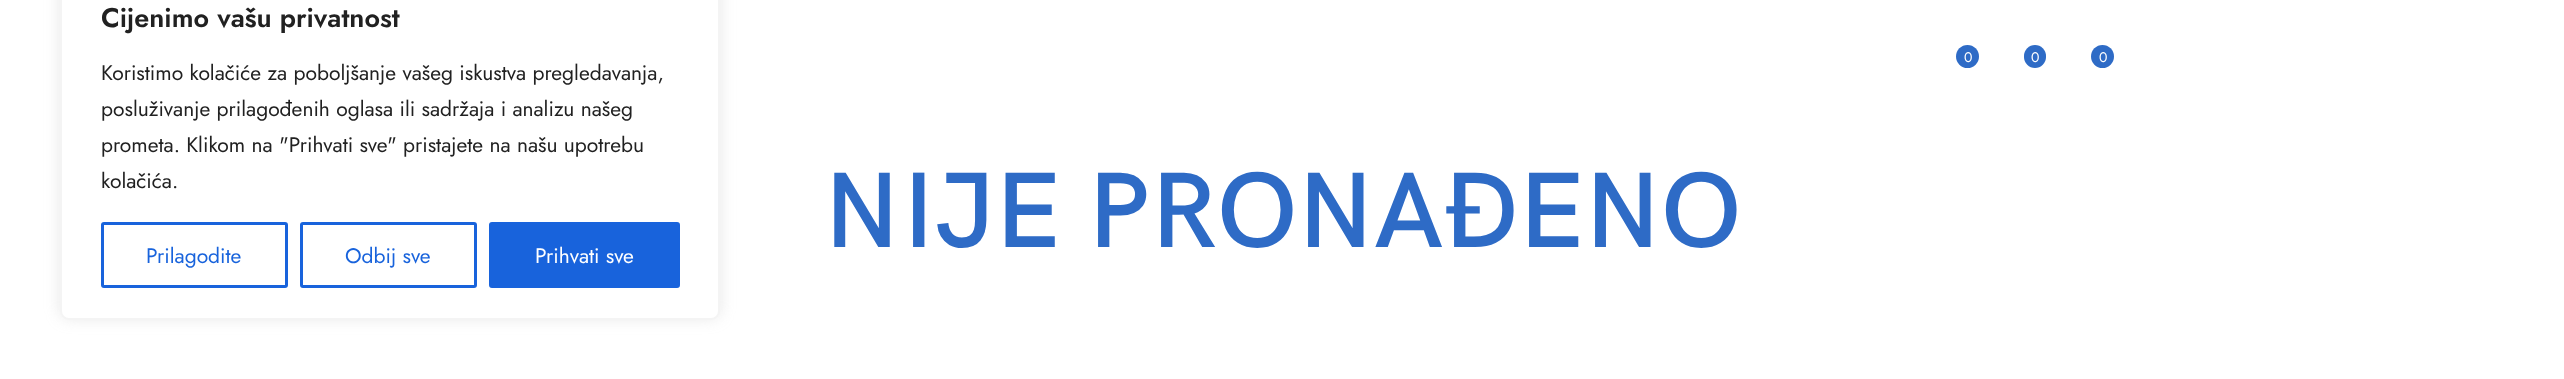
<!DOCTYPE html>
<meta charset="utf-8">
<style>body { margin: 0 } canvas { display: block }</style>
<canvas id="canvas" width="2564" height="379"></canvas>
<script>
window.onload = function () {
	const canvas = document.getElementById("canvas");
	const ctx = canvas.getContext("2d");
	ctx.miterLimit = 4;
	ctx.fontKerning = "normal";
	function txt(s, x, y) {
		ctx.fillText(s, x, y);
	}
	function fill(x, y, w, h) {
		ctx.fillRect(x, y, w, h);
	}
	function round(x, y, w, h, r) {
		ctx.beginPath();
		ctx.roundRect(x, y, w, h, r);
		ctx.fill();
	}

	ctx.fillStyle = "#FFFFFF";
	fill(0, 0, 2564, 379);
	ctx.fillStyle = "rgba(172, 171, 171, 0.3)";
	ctx.filter = "blur(7.5px)";
	ctx.beginPath();
	ctx.roundRect(60, -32, 660, 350, 9);
	ctx.fill();
	ctx.filter = "none";
	ctx.fillStyle = "#FFFFFF";
	ctx.beginPath();
	ctx.roundRect(61, -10, 658, 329, 8);
	ctx.fill();
	ctx.strokeStyle = "#F4F4F4";
	ctx.lineWidth = 2;
	ctx.stroke();
	ctx.beginPath();
	ctx.roundRect(102.5, 223.5, 184, 63, 1.5);
	ctx.strokeStyle = "#1863DC";
	ctx.lineWidth = 3;
	ctx.stroke();
	ctx.beginPath();
	ctx.roundRect(301.5, 223.5, 174, 63, 1.5);
	ctx.stroke();
	ctx.fillStyle = "#1863DC";
	ctx.beginPath();
	ctx.roundRect(490.5, 223.5, 188, 63, 1.5);
	ctx.fill();
	ctx.stroke();
	ctx.fillStyle = "#2E6BC6";
	ctx.beginPath();
	ctx.arc(1967.5, 56.5, 11.5, 0, Math.PI * 2);
	ctx.fill();
	round(2024, 45, 22, 23, 11);
	ctx.beginPath();
	ctx.arc(2102.5, 56.5, 11.5, 0, Math.PI * 2);
	ctx.fill();
	ctx.font = "600 27px Jost";
	ctx.fillStyle = "#212121";
	txt("Cijenimo vašu privatnost", 101, 27);
	ctx.font = "21px Jost";
	txt("Koristimo kolačiće za poboljšanje vašeg iskustva pregledavanja,", 101, 80);
	txt("posluživanje prilagođenih oglasa ili sadržaja i analizu našeg", 101, 116);
	txt("prometa. Klikom na \"Prihvati sve\" pristajete na našu upotrebu", 101, 152);
	txt("kolačića.", 101, 188);
	ctx.fillStyle = "#1863DC";
	txt("Prilagodite", 146, 263);
	txt("Odbij sve", 345, 263);
	ctx.fillStyle = "#FFFFFF";
	txt("Prihvati sve", 535, 263);
	ctx.font = "14px Jost";
	txt("0", 1964, 62);
	txt("0", 2031, 62);
	txt("0", 2099, 62);
	ctx.font = "600 107.75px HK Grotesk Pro";
	ctx.fillStyle = "#2E6BC6";
	txt("NIJE PRONAĐENO", 824, 247);
};
</script>
